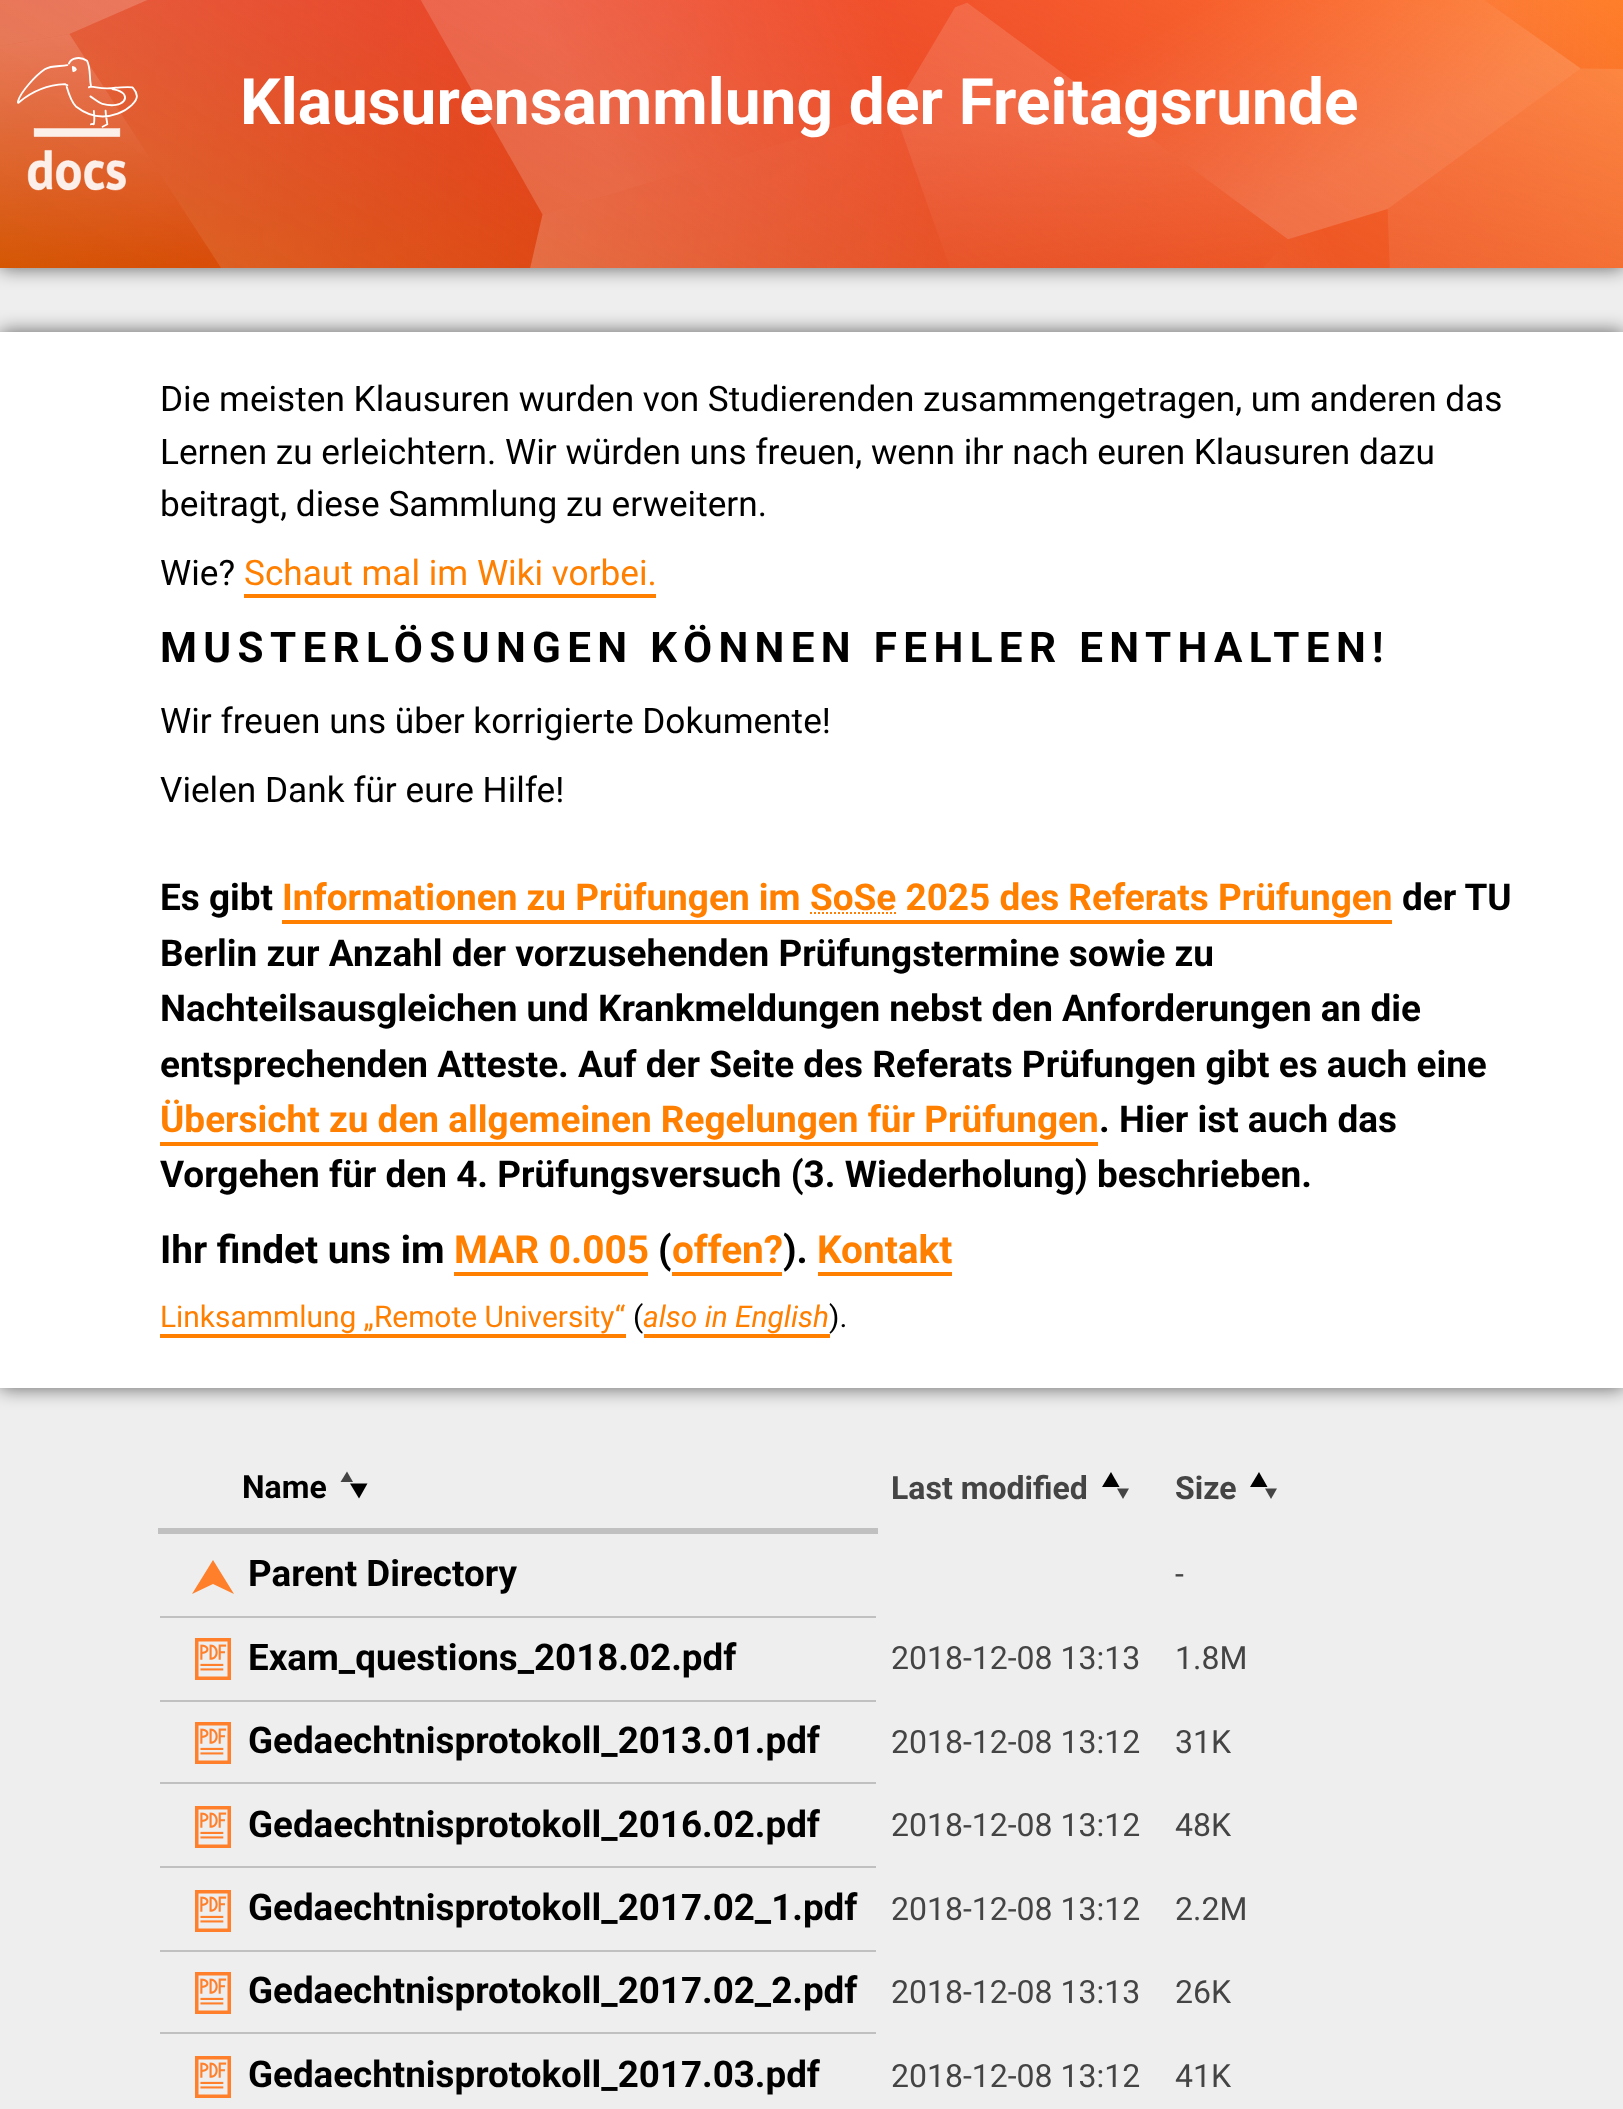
<!DOCTYPE html>
<meta charset="utf-8">
<style>body { margin: 0 } canvas { display: block }</style>
<canvas id="canvas" width="1623" height="2109"></canvas>
<img id="img1" src="img_01.png" hidden>
<img id="img2" src="img_02.png" hidden>
<script>
window.onload = function () {
	const canvas = document.getElementById("canvas");
	const ctx = canvas.getContext("2d");
	ctx.miterLimit = 4;
	ctx.fontKerning = "normal";
	function txt(s, x, y) {
		ctx.fillText(s, x, y);
	}
	function fill(x, y, w, h) {
		ctx.fillRect(x, y, w, h);
	}
	function img(id, x, y, w, h) {
		ctx.drawImage(document.getElementById(id), x, y, w, h);
	}

	ctx.fillStyle = "#EEEEEE";
	fill(0, 0, 1623, 2109);
	ctx.fillStyle = "rgba(0, 0, 0, 0.6)";
	ctx.filter = "blur(9.5px)";
	ctx.beginPath();
	ctx.rect(0, 0, 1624, 268);
	ctx.fill();
	ctx.filter = "none";
	ctx.fillStyle = "#FF7F2A";
	fill(0, 0, 1623, 268);
	img("img1", 0, 0, 1623, 268);
	ctx.fillStyle = "rgba(0, 0, 0, 0.6)";
	ctx.filter = "blur(9.5px)";
	ctx.beginPath();
	ctx.rect(0, 332, 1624, 1056);
	ctx.fill();
	ctx.filter = "none";
	ctx.fillStyle = "#FFFFFF";
	fill(0, 332, 1623, 1056);
	ctx.fillStyle = "#FF7F00";
	fill(244, 594, 412, 4);
	fill(282, 920, 1110, 4);
	ctx.beginPath();
	ctx.moveTo(810, 913);
	ctx.lineTo(896.5, 913);
	ctx.strokeStyle = "#FF7F00";
	ctx.lineWidth = 2;
	ctx.setLineDash([2, 2]);
	ctx.stroke();
	fill(160, 1142, 938, 4);
	fill(454, 1272, 194, 4);
	fill(672, 1272, 110, 4);
	fill(818, 1272, 134, 4);
	fill(160, 1334, 466, 4);
	fill(644, 1334, 186, 4);
	ctx.fillStyle = "#C0C0C0";
	fill(158, 1528, 720, 6);
	ctx.fillStyle = "#444444";
	ctx.beginPath();
	ctx.moveTo(353, 1482);
	ctx.lineTo(347, 1471.5);
	ctx.lineTo(340.5, 1482);
	ctx.closePath();
	ctx.fill();
	ctx.fillStyle = "#000000";
	ctx.beginPath();
	ctx.moveTo(359, 1498.5);
	ctx.lineTo(367.5, 1483.5);
	ctx.lineTo(350, 1483.5);
	ctx.closePath();
	ctx.fill();
	ctx.fillStyle = "#444444";
	ctx.beginPath();
	ctx.moveTo(1117, 1488.5);
	ctx.lineTo(1123, 1499);
	ctx.lineTo(1129, 1488.5);
	ctx.closePath();
	ctx.fill();
	ctx.fillStyle = "#000000";
	ctx.beginPath();
	ctx.moveTo(1111, 1472);
	ctx.lineTo(1102, 1487);
	ctx.lineTo(1119.5, 1487);
	ctx.closePath();
	ctx.fill();
	ctx.fillStyle = "#444444";
	ctx.beginPath();
	ctx.moveTo(1265, 1488.5);
	ctx.lineTo(1271, 1499);
	ctx.lineTo(1277, 1488.5);
	ctx.closePath();
	ctx.fill();
	ctx.fillStyle = "#000000";
	ctx.beginPath();
	ctx.moveTo(1259, 1472);
	ctx.lineTo(1250, 1487);
	ctx.lineTo(1267.5, 1487);
	ctx.closePath();
	ctx.fill();
	ctx.fillStyle = "#C0C0C0";
	fill(160, 1616, 716, 2);
	ctx.fillStyle = "#FF7F2A";
	ctx.beginPath();
	ctx.moveTo(192, 1594);
	ctx.lineTo(213, 1560);
	ctx.lineTo(234, 1594);
	ctx.lineTo(213, 1584);
	ctx.closePath();
	ctx.fill("evenodd");
	ctx.fillStyle = "#C0C0C0";
	fill(160, 1700, 716, 2);
	img("img2", 195, 1638, 36, 42);
	fill(160, 1782, 716, 2);
	img("img2", 195, 1722, 36, 42);
	fill(160, 1866, 716, 2);
	img("img2", 195, 1806, 36, 42);
	fill(160, 1950, 716, 2);
	img("img2", 195, 1890, 36, 42);
	fill(160, 2032, 716, 2);
	img("img2", 195, 1972, 36, 42);
	img("img2", 195, 2056, 36, 42);
	ctx.font = "bold 64px Roboto";
	ctx.fillStyle = "#FFFFFF";
	txt("Klausurensammlung der Freitagsrunde", 240, 124);
	ctx.font = "35.2px Roboto";
	ctx.fillStyle = "#000000";
	txt("Die meisten Klausuren wurden von Studierenden zusammengetragen, um anderen das", 160, 411);
	txt("Lernen zu erleichtern. Wir würden uns freuen, wenn ihr nach euren Klausuren dazu", 160, 464);
	txt("beitragt, diese Sammlung zu erweitern.", 160, 516);
	txt("Wie?", 160, 585);
	ctx.fillStyle = "#FF7F00";
	txt("Schaut mal im Wiki vorbei.", 244, 585);
	ctx.letterSpacing = "6.35px";
	ctx.font = "bold 42.25px Roboto";
	ctx.fillStyle = "#000000";
	txt("MUSTERLÖSUNGEN KÖNNEN FEHLER ENTHALTEN!", 160, 662);
	ctx.letterSpacing = "0px";
	ctx.font = "35.2px Roboto";
	txt("Wir freuen uns über korrigierte Dokumente!", 160, 733);
	txt("Vielen Dank für eure Hilfe!", 160, 802);
	ctx.font = "bold 36.95px Roboto";
	txt("Es gibt", 160, 910);
	ctx.fillStyle = "#FF7F00";
	txt("Informationen zu Prüfungen im", 282, 910);
	txt("SoSe 2025 des Referats Prüfungen", 810, 910);
	ctx.fillStyle = "#000000";
	txt("der TU", 1402, 910);
	txt("Berlin zur Anzahl der vorzusehenden Prüfungstermine sowie zu", 160, 966);
	txt("Nachteilsausgleichen und Krankmeldungen nebst den Anforderungen an die", 160, 1021);
	txt("entsprechenden Atteste. Auf der Seite des Referats Prüfungen gibt es auch eine", 160, 1077);
	ctx.fillStyle = "#FF7F00";
	txt("Übersicht zu den allgemeinen Regelungen für Prüfungen", 160, 1132);
	ctx.fillStyle = "#000000";
	txt(". Hier ist auch das", 1099, 1132);
	txt("Vorgehen für den 4. Prüfungsversuch (3. Wiederholung) beschrieben.", 160, 1187);
	ctx.font = "bold 38.75px Roboto";
	txt("Ihr findet uns im", 160, 1263);
	ctx.fillStyle = "#FF7F00";
	txt("MAR 0.005", 454, 1263);
	ctx.fillStyle = "#000000";
	txt("(", 658, 1263);
	ctx.fillStyle = "#FF7F00";
	txt("offen?", 672, 1263);
	ctx.fillStyle = "#000000";
	txt(").", 783, 1263);
	ctx.fillStyle = "#FF7F00";
	txt("Kontakt", 817, 1263);
	ctx.font = "29.9px Roboto";
	txt("Linksammlung „Remote University“", 160, 1327);
	ctx.fillStyle = "#000000";
	txt("(", 633, 1327);
	ctx.font = "italic 29.9px Roboto";
	ctx.fillStyle = "#FF7F00";
	txt("also in English", 643, 1327);
	ctx.font = "29.9px Roboto";
	ctx.fillStyle = "#000000";
	txt(").", 829, 1327);
	ctx.font = "bold 32px Roboto";
	txt("Name", 242, 1498);
	ctx.fillStyle = "#444444";
	txt("Last modified", 891, 1499);
	txt("Size", 1175, 1499);
	ctx.font = "bold 36.75px Roboto";
	ctx.fillStyle = "#000000";
	txt("Parent Directory", 248, 1586);
	ctx.font = "32px Roboto";
	ctx.fillStyle = "#444444";
	txt("-", 1175, 1585);
	ctx.font = "bold 36.75px Roboto";
	ctx.fillStyle = "#000000";
	txt("Exam_questions_2018.02.pdf", 248, 1670);
	ctx.font = "32px Roboto";
	ctx.fillStyle = "#444444";
	txt("2018-12-08 13:13", 891, 1669);
	txt("1.8M", 1175, 1669);
	ctx.font = "bold 36.75px Roboto";
	ctx.fillStyle = "#000000";
	txt("Gedaechtnisprotokoll_2013.01.pdf", 248, 1753);
	ctx.font = "32px Roboto";
	ctx.fillStyle = "#444444";
	txt("2018-12-08 13:12", 891, 1753);
	txt("31K", 1175, 1753);
	ctx.font = "bold 36.75px Roboto";
	ctx.fillStyle = "#000000";
	txt("Gedaechtnisprotokoll_2016.02.pdf", 248, 1837);
	ctx.font = "32px Roboto";
	ctx.fillStyle = "#444444";
	txt("2018-12-08 13:12", 891, 1836);
	txt("48K", 1175, 1836);
	ctx.font = "bold 36.75px Roboto";
	ctx.fillStyle = "#000000";
	txt("Gedaechtnisprotokoll_2017.02_1.pdf", 248, 1920);
	ctx.font = "32px Roboto";
	ctx.fillStyle = "#444444";
	txt("2018-12-08 13:12", 891, 1920);
	txt("2.2M", 1175, 1920);
	ctx.font = "bold 36.75px Roboto";
	ctx.fillStyle = "#000000";
	txt("Gedaechtnisprotokoll_2017.02_2.pdf", 248, 2003);
	ctx.font = "32px Roboto";
	ctx.fillStyle = "#444444";
	txt("2018-12-08 13:13", 891, 2003);
	txt("26K", 1175, 2003);
	ctx.font = "bold 36.75px Roboto";
	ctx.fillStyle = "#000000";
	txt("Gedaechtnisprotokoll_2017.03.pdf", 248, 2087);
	ctx.font = "32px Roboto";
	ctx.fillStyle = "#444444";
	txt("2018-12-08 13:12", 891, 2087);
	txt("41K", 1175, 2087);
};
</script>
